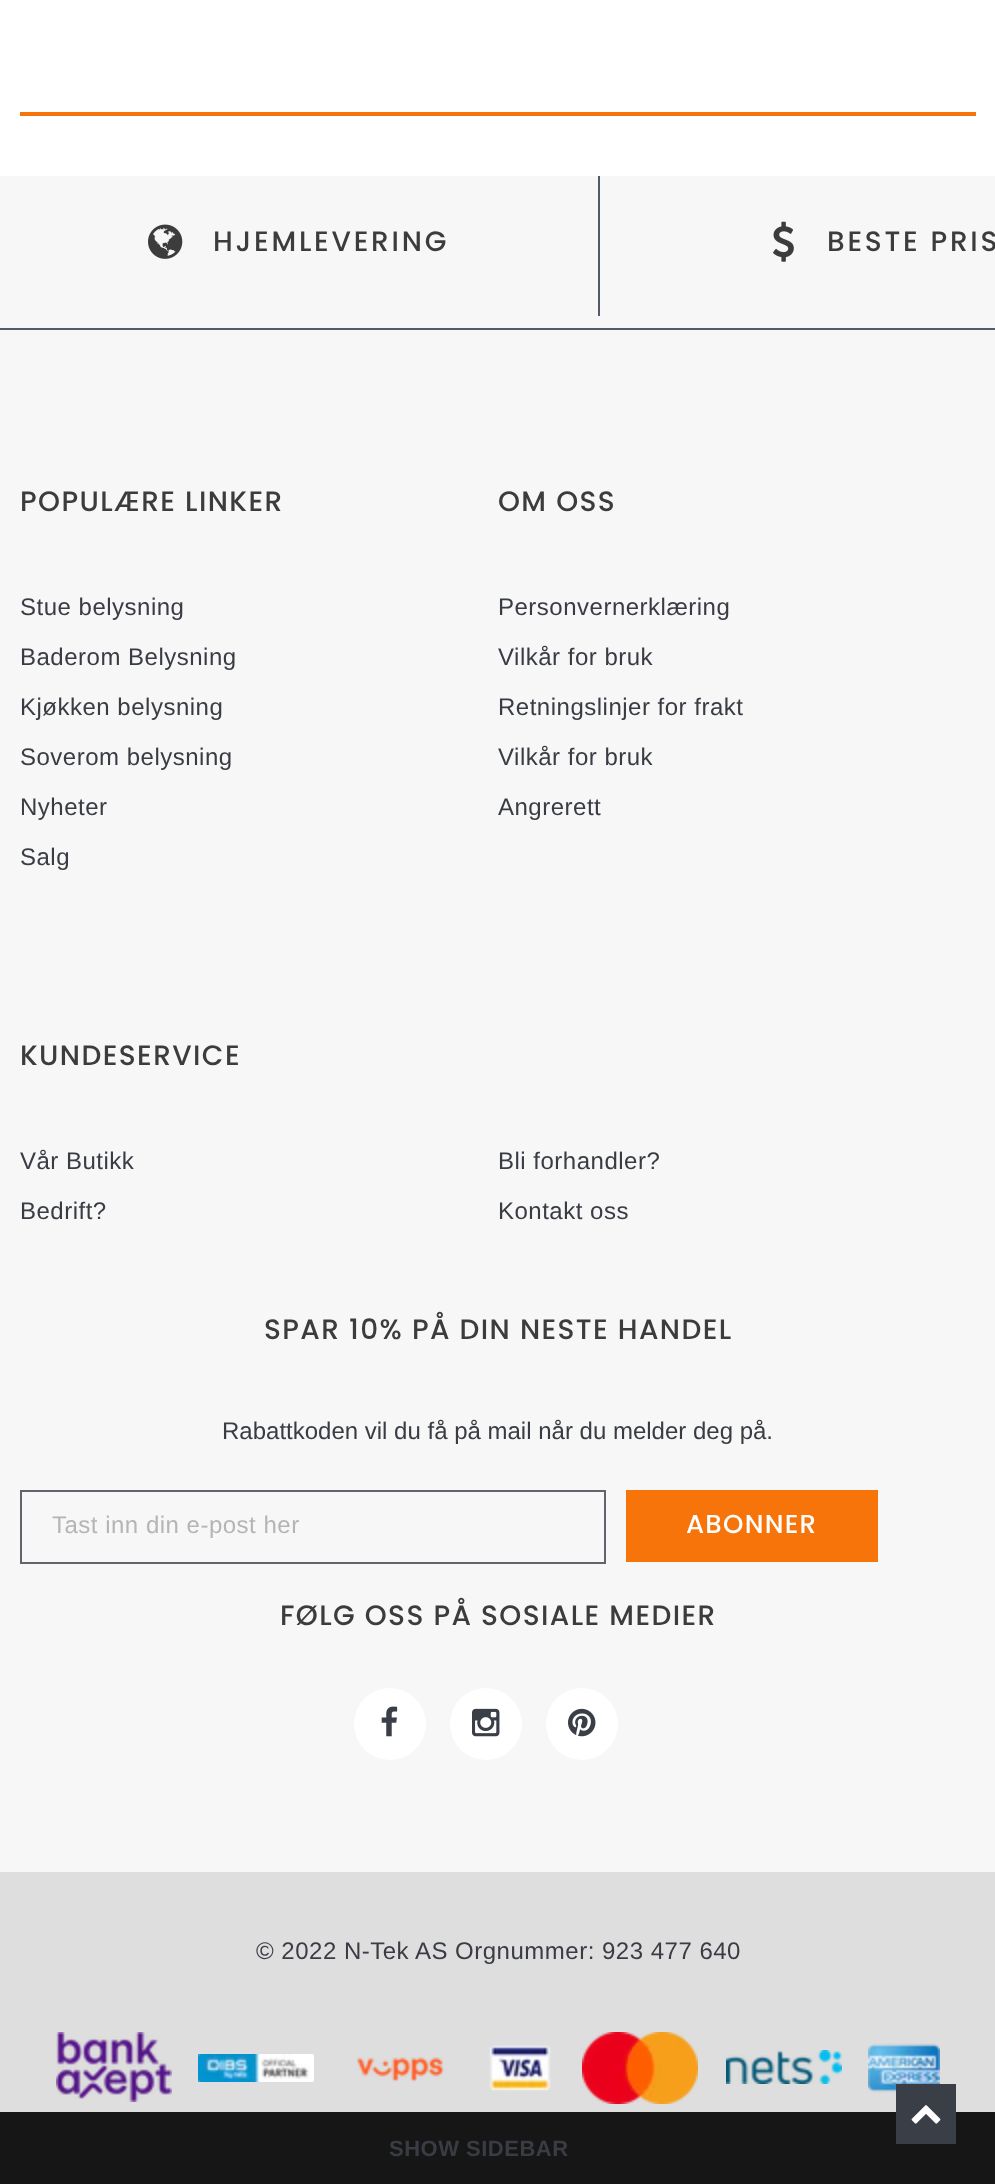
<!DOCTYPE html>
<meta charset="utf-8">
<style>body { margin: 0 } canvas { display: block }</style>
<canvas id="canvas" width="995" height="2184"></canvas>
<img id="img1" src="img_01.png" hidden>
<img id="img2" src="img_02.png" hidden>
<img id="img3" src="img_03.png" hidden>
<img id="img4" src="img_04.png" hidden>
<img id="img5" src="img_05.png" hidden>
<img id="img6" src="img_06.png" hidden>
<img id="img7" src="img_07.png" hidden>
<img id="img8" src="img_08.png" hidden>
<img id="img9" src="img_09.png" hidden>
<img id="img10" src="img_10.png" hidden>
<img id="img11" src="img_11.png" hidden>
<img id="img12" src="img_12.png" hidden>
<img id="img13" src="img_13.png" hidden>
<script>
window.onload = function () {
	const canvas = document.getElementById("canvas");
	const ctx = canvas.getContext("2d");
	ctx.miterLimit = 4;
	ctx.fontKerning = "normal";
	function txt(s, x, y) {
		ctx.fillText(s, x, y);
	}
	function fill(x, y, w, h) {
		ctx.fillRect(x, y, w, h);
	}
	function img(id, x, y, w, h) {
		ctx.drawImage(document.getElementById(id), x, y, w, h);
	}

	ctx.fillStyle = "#FFFFFF";
	fill(0, 0, 995, 2184);
	ctx.fillStyle = "#F6740A";
	fill(20, 112, 956, 4);
	ctx.fillStyle = "#F7F7F7";
	fill(0, 176, 995, 1696);
	ctx.fillStyle = "#555B66";
	fill(0, 328, 995, 2);
	fill(598, 176, 2, 140);
	img("img1", 148, 224, 35, 35);
	img("img2", 773, 221, 21, 41);
	ctx.strokeStyle = "#61656B";
	ctx.lineWidth = 2;
	ctx.strokeRect(21, 1491, 584, 72);
	ctx.fillStyle = "#F6740A";
	fill(626, 1490, 252, 72);
	ctx.fillStyle = "#FFFFFF";
	ctx.beginPath();
	ctx.arc(390, 1724, 36, 0, Math.PI * 2);
	ctx.fill();
	img("img3", 381, 1706, 17, 31);
	ctx.beginPath();
	ctx.arc(486, 1724, 36, 0, Math.PI * 2);
	ctx.fill();
	img("img4", 472, 1708, 28, 29);
	ctx.beginPath();
	ctx.arc(582, 1724, 36, 0, Math.PI * 2);
	ctx.fill();
	img("img5", 568, 1708, 28, 29);
	ctx.fillStyle = "#DEDEDE";
	fill(0, 1872, 995, 240);
	img("img6", 56, 2032, 116, 70);
	img("img7", 198, 2054, 116, 28);
	img("img8", 356, 2057, 89, 25);
	img("img9", 489, 2045, 62, 46);
	img("img10", 582, 2032, 116, 72);
	img("img11", 726, 2050, 116, 34);
	img("img12", 868, 2043, 72, 50);
	ctx.fillStyle = "#161616";
	fill(0, 2112, 995, 72);
	ctx.fillStyle = "#3A3E46";
	fill(896, 2084, 60, 60);
	img("img13", 911, 2105, 30, 19);
	ctx.letterSpacing = "2.75px";
	ctx.font = "500 28px Poppins";
	ctx.fillStyle = "#3C3C3C";
	txt("HJEMLEVERING", 213, 251);
	txt("BESTE PRIS", 827, 251);
	ctx.letterSpacing = "1.4px";
	txt("POPULÆRE LINKER", 20, 511);
	ctx.letterSpacing = "0.5px";
	ctx.font = "24px Arimo";
	ctx.fillStyle = "#393C43";
	txt("Stue belysning", 20, 615);
	txt("Baderom Belysning", 20, 665);
	txt("Kjøkken belysning", 20, 715);
	txt("Soverom belysning", 20, 765);
	txt("Nyheter", 20, 815);
	txt("Salg", 20, 865);
	ctx.letterSpacing = "1.4px";
	ctx.font = "500 28px Poppins";
	ctx.fillStyle = "#3C3C3C";
	txt("OM OSS", 498, 511);
	ctx.letterSpacing = "0.5px";
	ctx.font = "24px Arimo";
	ctx.fillStyle = "#393C43";
	txt("Personvernerklæring", 498, 615);
	txt("Vilkår for bruk", 498, 665);
	txt("Retningslinjer for frakt", 498, 715);
	txt("Vilkår for bruk", 498, 765);
	txt("Angrerett", 498, 815);
	ctx.letterSpacing = "1.4px";
	ctx.font = "500 28px Poppins";
	ctx.fillStyle = "#3C3C3C";
	txt("KUNDESERVICE", 20, 1065);
	ctx.letterSpacing = "0.5px";
	ctx.font = "24px Arimo";
	ctx.fillStyle = "#393C43";
	txt("Vår Butikk", 20, 1169);
	txt("Bli forhandler?", 498, 1169);
	txt("Bedrift?", 20, 1219);
	txt("Kontakt oss", 498, 1219);
	ctx.letterSpacing = "1.4px";
	ctx.font = "500 28px Poppins";
	ctx.fillStyle = "#3C3C3C";
	txt("SPAR 10% PÅ DIN NESTE HANDEL", 264, 1339);
	ctx.letterSpacing = "0px";
	ctx.font = "24px Arimo";
	ctx.fillStyle = "#393C43";
	txt("Rabattkoden vil du få på mail når du melder deg på.", 222, 1439);
	ctx.letterSpacing = "0.5px";
	ctx.fillStyle = "#B5B5B5";
	txt("Tast inn din e-post her", 52, 1533);
	ctx.letterSpacing = "1.25px";
	ctx.font = "500 26px Poppins";
	ctx.fillStyle = "#FFFFFF";
	txt("ABONNER", 686, 1533);
	ctx.letterSpacing = "1.4px";
	ctx.font = "500 28px Poppins";
	ctx.fillStyle = "#3C3C3C";
	txt("FØLG OSS PÅ SOSIALE MEDIER", 280, 1625);
	ctx.letterSpacing = "0.5px";
	ctx.font = "24px Arimo";
	ctx.fillStyle = "#393C43";
	txt("© 2022 N-Tek AS Orgnummer: 923 477 640", 256, 1959);
	ctx.font = "bold 22px Arimo";
	txt("SHOW SIDEBAR", 389, 2156);
};
</script>
